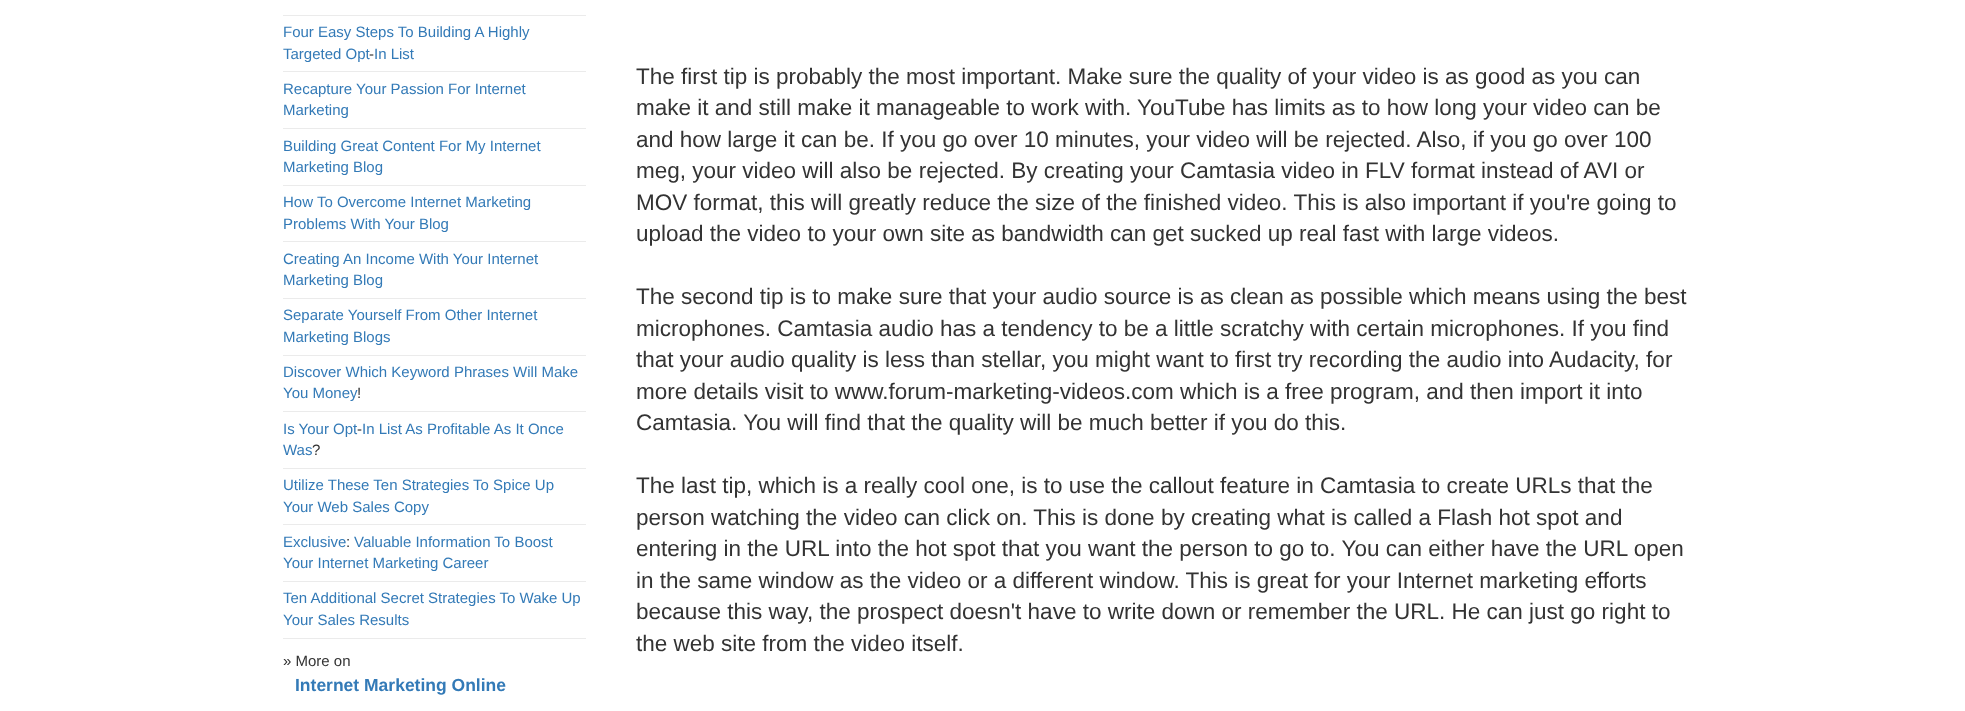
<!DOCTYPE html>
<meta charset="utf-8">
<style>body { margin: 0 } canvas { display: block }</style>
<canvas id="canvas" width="1965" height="711"></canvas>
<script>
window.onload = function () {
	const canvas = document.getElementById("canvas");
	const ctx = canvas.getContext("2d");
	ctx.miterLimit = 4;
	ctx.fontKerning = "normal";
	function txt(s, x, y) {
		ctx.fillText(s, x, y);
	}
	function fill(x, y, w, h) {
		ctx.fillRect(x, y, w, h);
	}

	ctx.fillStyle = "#FFFFFF";
	fill(0, 0, 1965, 711);
	ctx.fillStyle = "#EBEBEB";
	fill(283, 15, 303, 1);
	fill(283, 71, 303, 1);
	fill(283, 128, 303, 1);
	fill(283, 185, 303, 1);
	fill(283, 241, 303, 1);
	fill(283, 298, 303, 1);
	fill(283, 355, 303, 1);
	fill(283, 411, 303, 1);
	fill(283, 468, 303, 1);
	fill(283, 524, 303, 1);
	fill(283, 581, 303, 1);
	fill(283, 638, 303, 1);
	ctx.font = "15px Liberation Sans";
	ctx.fillStyle = "#337AB7";
	txt("Four Easy Steps To Building A Highly", 283, 37);
	txt("Targeted Opt", 283, 59);
	ctx.fillStyle = "#333333";
	txt("-", 369, 59);
	ctx.fillStyle = "#337AB7";
	txt("In List", 374, 59);
	txt("Recapture Your Passion For Internet", 283, 94);
	txt("Marketing", 283, 115);
	txt("Building Great Content For My Internet", 283, 151);
	txt("Marketing Blog", 283, 172);
	txt("How To Overcome Internet Marketing", 283, 207);
	txt("Problems With Your Blog", 283, 229);
	txt("Creating An Income With Your Internet", 283, 264);
	txt("Marketing Blog", 283, 285);
	txt("Separate Yourself From Other Internet", 283, 320);
	txt("Marketing Blogs", 283, 342);
	txt("Discover Which Keyword Phrases Will Make", 283, 377);
	txt("You Money", 283, 398);
	ctx.fillStyle = "#333333";
	txt("!", 357, 398);
	ctx.fillStyle = "#337AB7";
	txt("Is Your Opt", 283, 434);
	ctx.fillStyle = "#333333";
	txt("-", 357, 434);
	ctx.fillStyle = "#337AB7";
	txt("In List As Profitable As It Once", 362, 434);
	txt("Was", 283, 455);
	ctx.fillStyle = "#333333";
	txt("?", 312, 455);
	ctx.fillStyle = "#337AB7";
	txt("Utilize These Ten Strategies To Spice Up", 283, 490);
	txt("Your Web Sales Copy", 283, 512);
	txt("Exclusive", 283, 547);
	ctx.fillStyle = "#333333";
	txt(":", 346, 547);
	ctx.fillStyle = "#337AB7";
	txt("Valuable Information To Boost", 354, 547);
	txt("Your Internet Marketing Career", 283, 568);
	txt("Ten Additional Secret Strategies To Wake Up", 283, 603);
	txt("Your Sales Results", 283, 625);
	ctx.fillStyle = "#333333";
	txt("» More on", 283, 666);
	ctx.font = "bold 17.5px Liberation Sans";
	ctx.fillStyle = "#337AB7";
	txt("Internet Marketing Online", 295, 691);
	ctx.font = "22.5px Liberation Sans";
	ctx.fillStyle = "#333333";
	txt("The first tip is probably the most important. Make sure the quality of your video is as good as you can", 636, 84);
	txt("make it and still make it manageable to work with. YouTube has limits as to how long your video can be", 636, 115);
	txt("and how large it can be. If you go over 10 minutes, your video will be rejected. Also, if you go over 100", 636, 147);
	txt("meg, your video will also be rejected. By creating your Camtasia video in FLV format instead of AVI or", 636, 178);
	txt("MOV format, this will greatly reduce the size of the finished video. This is also important if you're going to", 636, 210);
	txt("upload the video to your own site as bandwidth can get sucked up real fast with large videos.", 636, 241);
	txt("The second tip is to make sure that your audio source is as clean as possible which means using the best", 636, 304);
	txt("microphones. Camtasia audio has a tendency to be a little scratchy with certain microphones. If you find", 636, 336);
	txt("that your audio quality is less than stellar, you might want to first try recording the audio into Audacity, for", 636, 367);
	txt("more details visit to www.forum-marketing-videos.com which is a free program, and then import it into", 636, 399);
	txt("Camtasia. You will find that the quality will be much better if you do this.", 636, 430);
	txt("The last tip, which is a really cool one, is to use the callout feature in Camtasia to create URLs that the", 636, 493);
	txt("person watching the video can click on. This is done by creating what is called a Flash hot spot and", 636, 525);
	txt("entering in the URL into the hot spot that you want the person to go to. You can either have the URL open", 636, 556);
	txt("in the same window as the video or a different window. This is great for your Internet marketing efforts", 636, 588);
	txt("because this way, the prospect doesn't have to write down or remember the URL. He can just go right to", 636, 619);
	txt("the web site from the video itself.", 636, 651);
};
</script>
